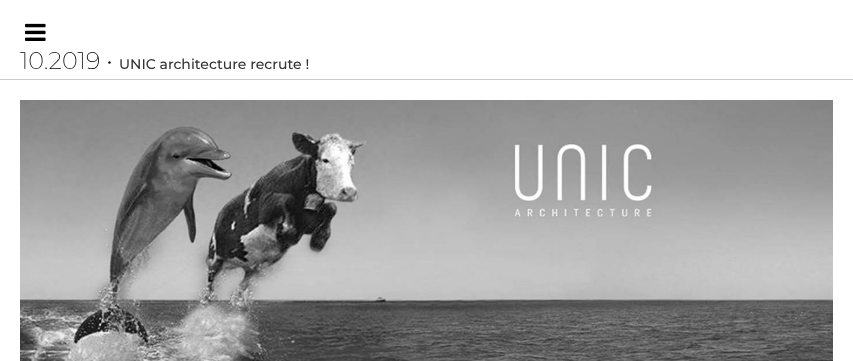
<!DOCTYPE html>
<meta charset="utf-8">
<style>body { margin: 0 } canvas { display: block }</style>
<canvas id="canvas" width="853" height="361"></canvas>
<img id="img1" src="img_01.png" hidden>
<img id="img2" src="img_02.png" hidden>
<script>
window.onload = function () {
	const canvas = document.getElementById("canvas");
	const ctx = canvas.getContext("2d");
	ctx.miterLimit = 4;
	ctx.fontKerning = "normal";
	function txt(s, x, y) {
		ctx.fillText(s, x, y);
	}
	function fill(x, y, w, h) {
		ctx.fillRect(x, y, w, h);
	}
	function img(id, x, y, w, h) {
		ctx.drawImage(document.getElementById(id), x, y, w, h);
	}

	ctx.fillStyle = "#FFFFFF";
	fill(0, 0, 853, 361);
	img("img1", 25, 23, 21, 18);
	img("img2", 20, 100, 813, 261);
	ctx.fillStyle = "#CCCCCC";
	fill(0, 79, 853, 1);
	ctx.font = "200 24px Montserrat";
	ctx.fillStyle = "#000000";
	txt("10.2019 •", 20, 69);
	ctx.font = "500 14px Montserrat";
	ctx.fillStyle = "#323232";
	txt("UNIC architecture recrute !", 119, 69);
};
</script>
